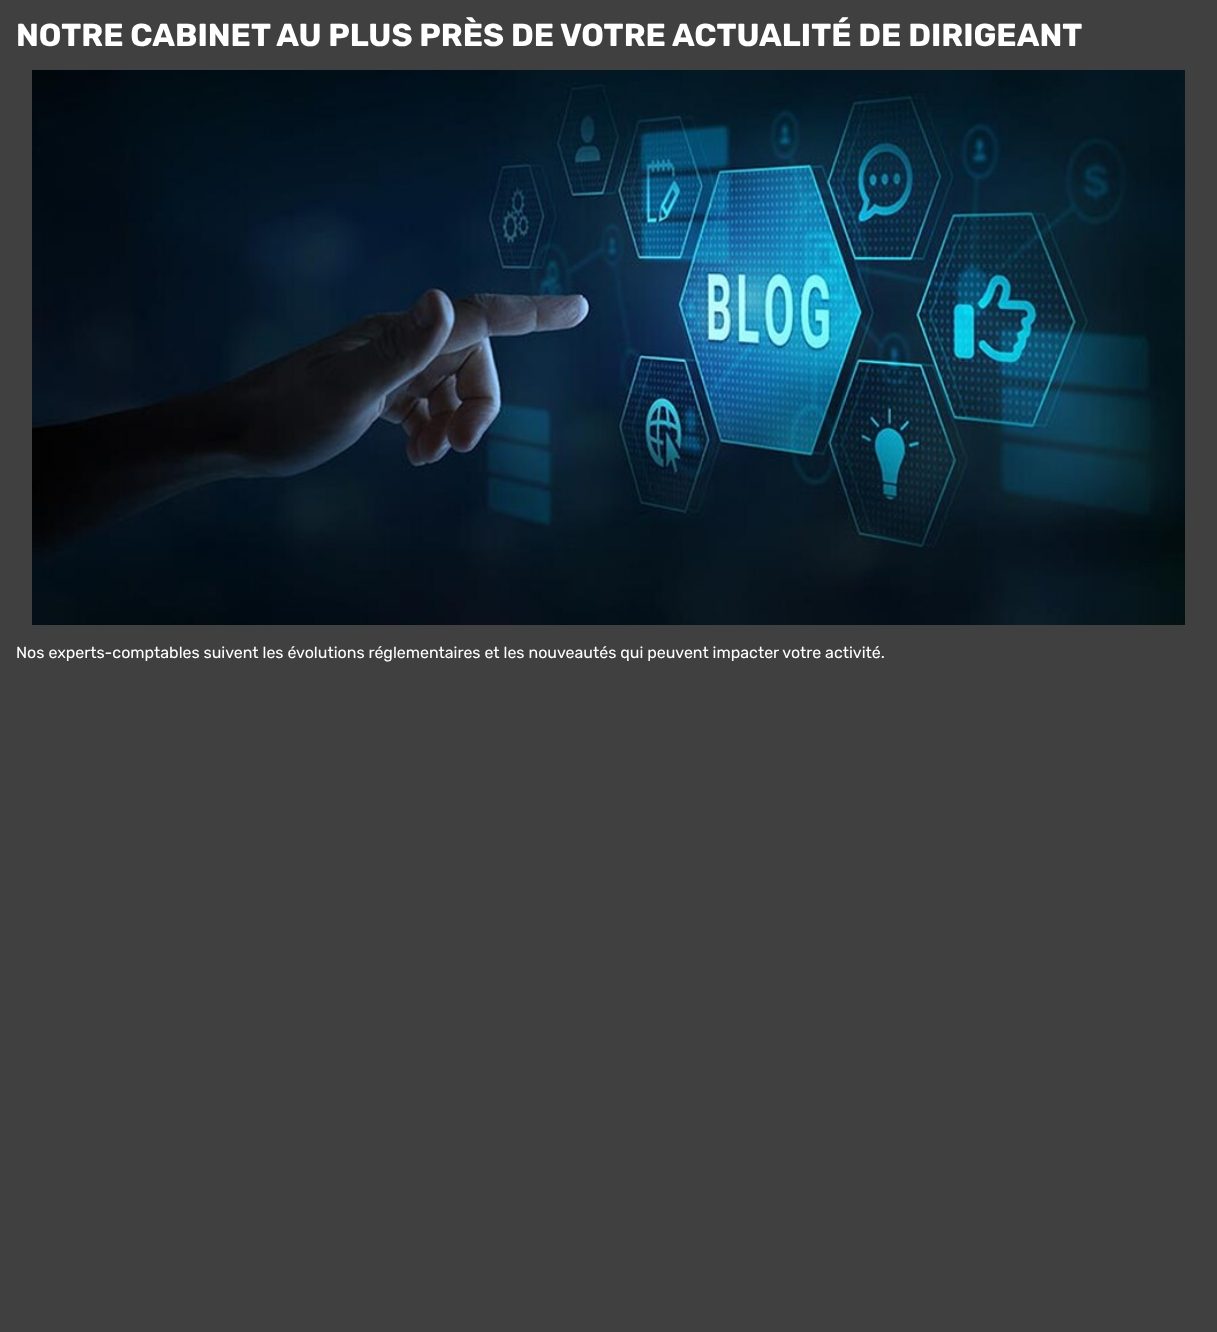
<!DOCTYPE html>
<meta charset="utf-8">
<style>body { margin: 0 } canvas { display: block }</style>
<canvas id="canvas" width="1217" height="1332"></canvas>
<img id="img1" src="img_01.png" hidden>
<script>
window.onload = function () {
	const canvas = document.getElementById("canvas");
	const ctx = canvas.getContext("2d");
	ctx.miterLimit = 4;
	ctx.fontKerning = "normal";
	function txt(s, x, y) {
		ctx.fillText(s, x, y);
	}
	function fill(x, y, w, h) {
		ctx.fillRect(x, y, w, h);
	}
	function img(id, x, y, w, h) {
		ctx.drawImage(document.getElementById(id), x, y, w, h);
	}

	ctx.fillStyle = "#404040";
	fill(0, 0, 1217, 1332);
	img("img1", 32, 70, 1153, 555);
	ctx.font = "bold 31.8px Rubik";
	ctx.fillStyle = "#FFFFFF";
	txt("NOTRE CABINET AU PLUS PRÈS DE VOTRE ACTUALITÉ DE DIRIGEANT", 16, 46);
	ctx.font = "16px Rubik";
	txt("Nos experts-comptables suivent les évolutions réglementaires et les nouveautés qui peuvent impacter votre activité.", 16, 658);
};
</script>
